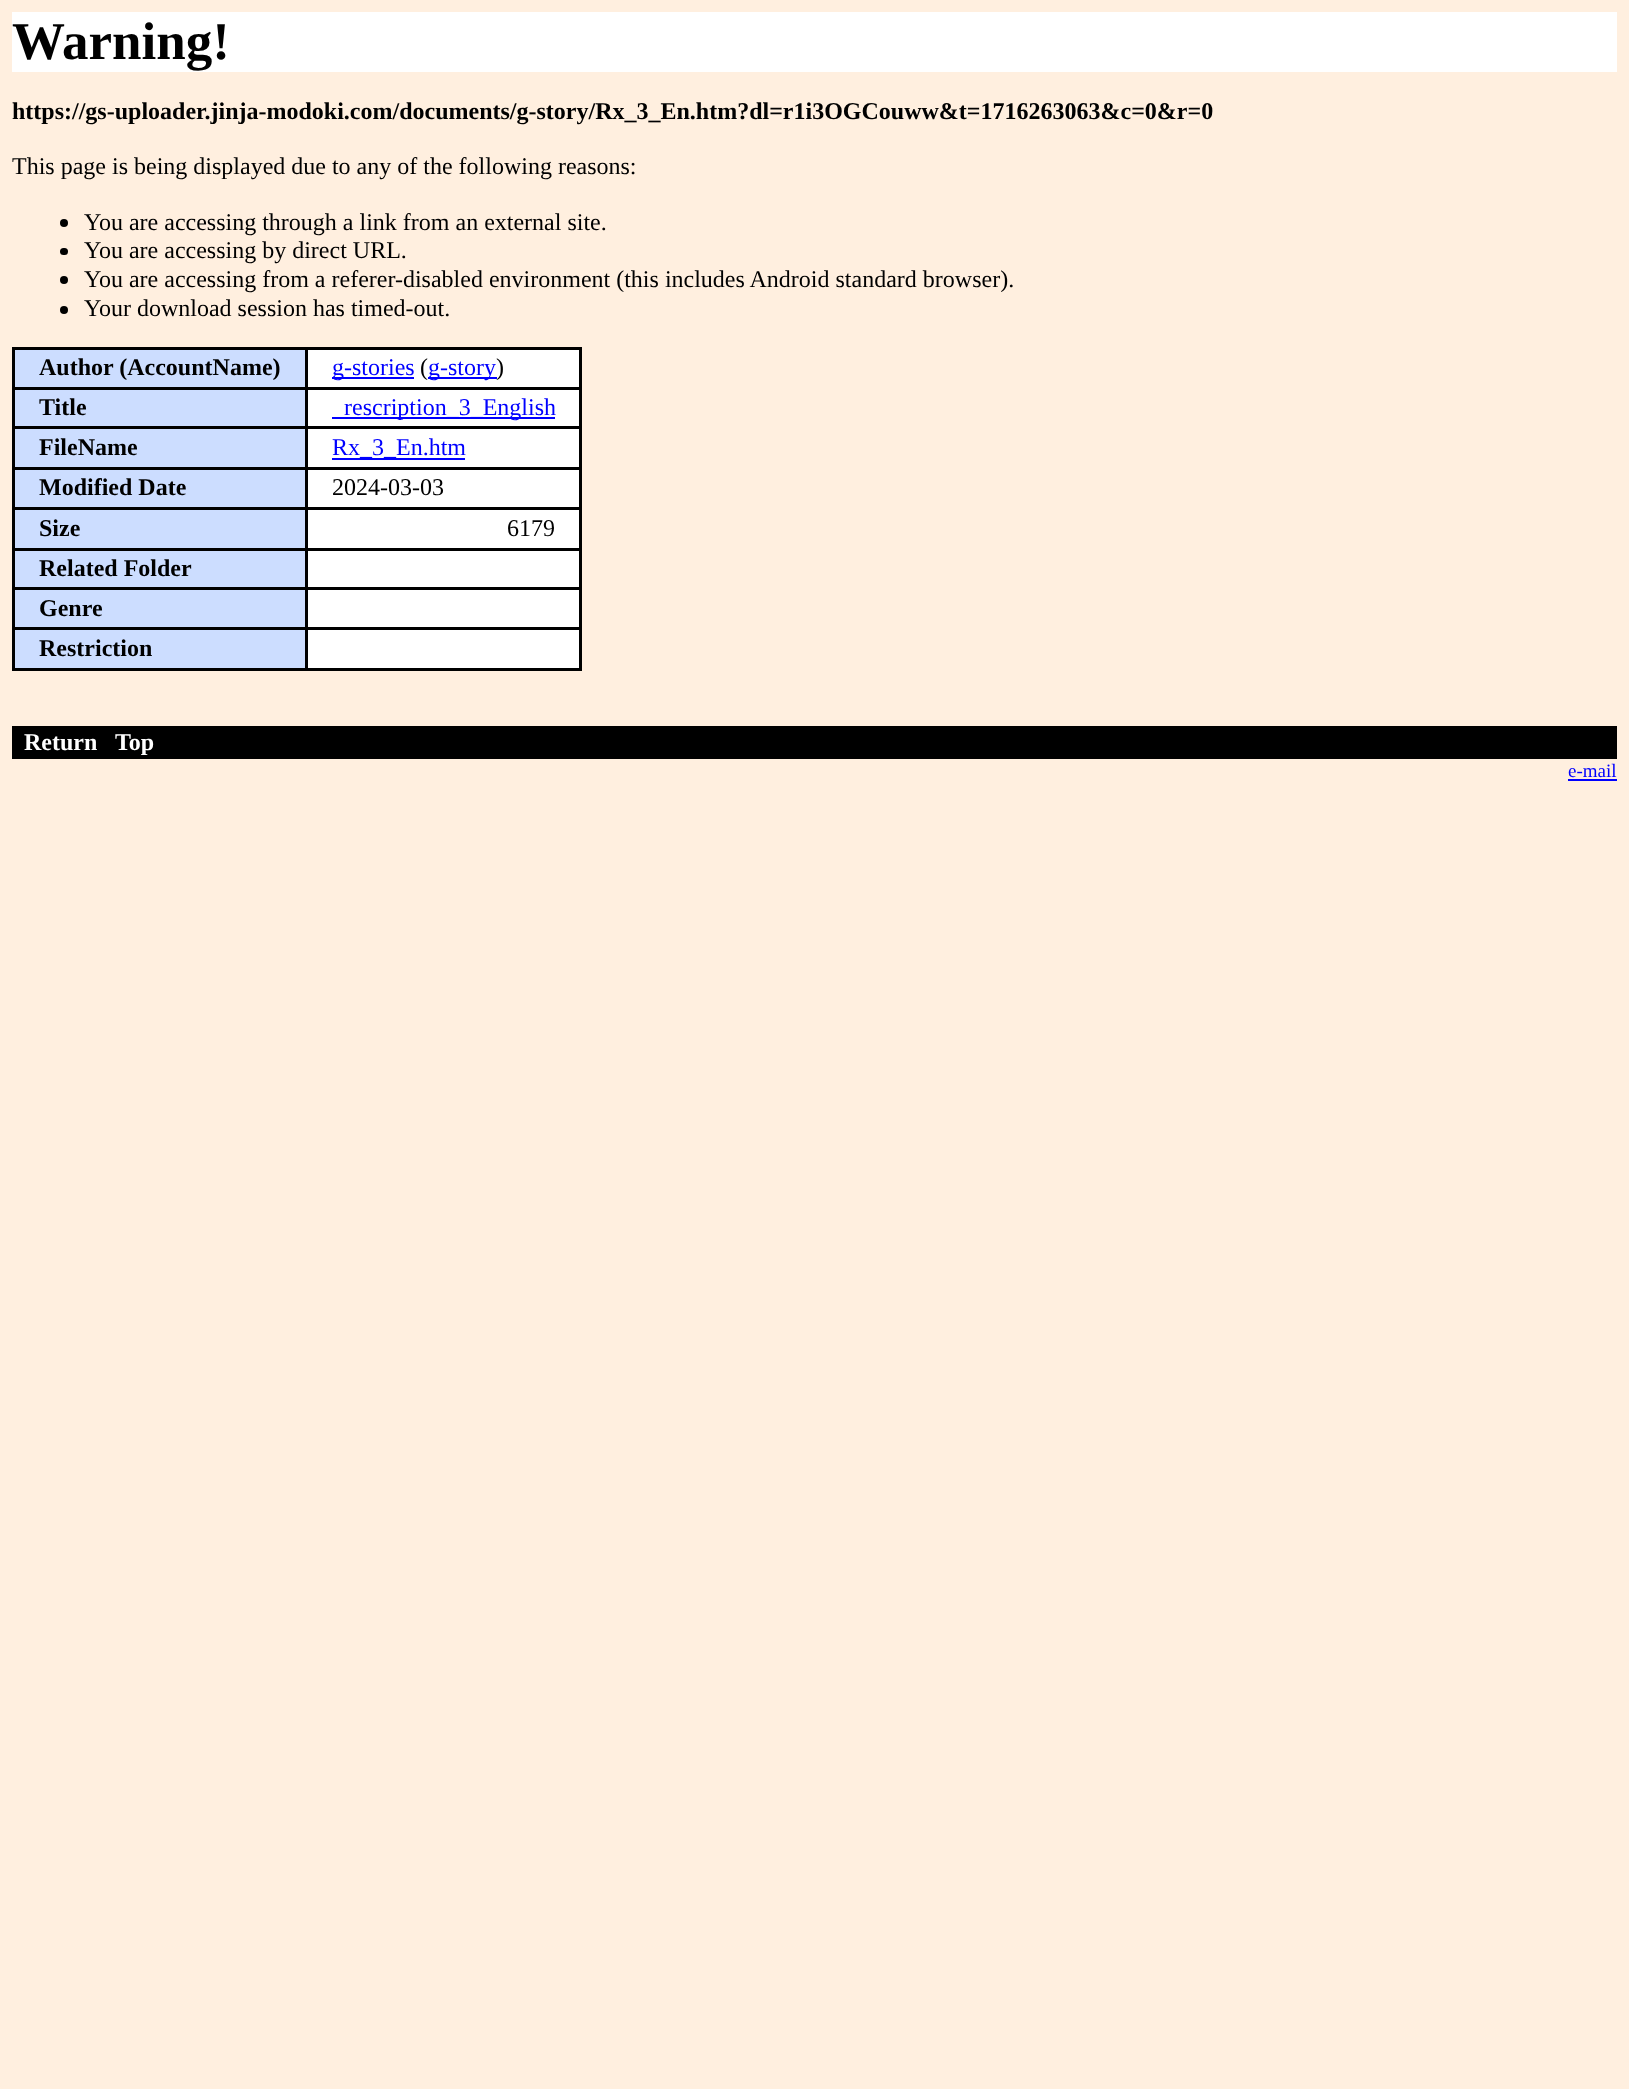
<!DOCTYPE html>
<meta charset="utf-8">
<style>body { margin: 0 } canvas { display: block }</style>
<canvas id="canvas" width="1629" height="2089"></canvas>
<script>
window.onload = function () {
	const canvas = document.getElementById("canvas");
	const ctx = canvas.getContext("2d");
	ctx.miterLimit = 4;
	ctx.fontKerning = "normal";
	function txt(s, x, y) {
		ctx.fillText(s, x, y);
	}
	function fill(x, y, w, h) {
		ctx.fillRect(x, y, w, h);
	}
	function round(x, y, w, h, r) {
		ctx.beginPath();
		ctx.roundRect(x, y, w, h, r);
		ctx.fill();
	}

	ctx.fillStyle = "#FFEFDF";
	fill(0, 0, 1629, 2089);
	ctx.fillStyle = "#FFFFFF";
	fill(12, 12, 1605, 60);
	ctx.fillStyle = "#000000";
	ctx.beginPath();
	ctx.arc(64, 223, 4, 0, Math.PI * 2);
	ctx.fill();
	round(60, 248, 8, 7, 3.5);
	ctx.beginPath();
	ctx.arc(64, 280, 4, 0, Math.PI * 2);
	ctx.fill();
	ctx.beginPath();
	ctx.arc(64, 310, 4, 0, Math.PI * 2);
	ctx.fill();
	fill(12, 347, 570, 3);
	fill(579, 347, 3, 324);
	fill(12, 668, 570, 3);
	fill(12, 347, 3, 324);
	ctx.fillStyle = "#CCDDFF";
	fill(15, 350, 290, 37);
	ctx.fillStyle = "#FFFFFF";
	fill(308, 350, 271, 37);
	ctx.fillStyle = "#000000";
	fill(305, 387, 277, 3);
	fill(305, 426, 277, 3);
	fill(305, 467, 277, 3);
	fill(305, 507, 277, 3);
	fill(305, 548, 277, 3);
	fill(305, 587, 277, 3);
	fill(305, 627, 277, 3);
	fill(305, 627, 3, 44);
	fill(12, 627, 296, 3);
	fill(305, 587, 3, 43);
	fill(12, 587, 296, 3);
	fill(305, 548, 3, 42);
	fill(12, 548, 296, 3);
	fill(305, 507, 3, 44);
	fill(12, 507, 296, 3);
	fill(305, 467, 3, 43);
	fill(12, 467, 296, 3);
	fill(305, 426, 3, 44);
	fill(12, 426, 296, 3);
	fill(305, 387, 3, 42);
	fill(12, 387, 296, 3);
	fill(305, 347, 3, 43);
	ctx.fillStyle = "#0000FF";
	fill(332, 377, 82, 2);
	fill(428, 377, 69, 2);
	ctx.fillStyle = "#CCDDFF";
	fill(15, 390, 290, 36);
	ctx.fillStyle = "#FFFFFF";
	fill(308, 390, 271, 36);
	ctx.fillStyle = "#0000FF";
	fill(332, 417, 223, 2);
	ctx.fillStyle = "#CCDDFF";
	fill(15, 429, 290, 38);
	ctx.fillStyle = "#FFFFFF";
	fill(308, 429, 271, 38);
	ctx.fillStyle = "#0000FF";
	fill(332, 458, 133, 2);
	ctx.fillStyle = "#CCDDFF";
	fill(15, 470, 290, 37);
	ctx.fillStyle = "#FFFFFF";
	fill(308, 470, 271, 37);
	ctx.fillStyle = "#CCDDFF";
	fill(15, 510, 290, 38);
	ctx.fillStyle = "#FFFFFF";
	fill(308, 510, 271, 38);
	ctx.fillStyle = "#CCDDFF";
	fill(15, 551, 290, 36);
	ctx.fillStyle = "#FFFFFF";
	fill(308, 551, 271, 36);
	ctx.fillStyle = "#CCDDFF";
	fill(15, 590, 290, 37);
	ctx.fillStyle = "#FFFFFF";
	fill(308, 590, 271, 37);
	ctx.fillStyle = "#CCDDFF";
	fill(15, 630, 290, 38);
	ctx.fillStyle = "#FFFFFF";
	fill(308, 630, 271, 38);
	ctx.fillStyle = "#000000";
	fill(12, 726, 1605, 33);
	ctx.fillStyle = "#0000FF";
	fill(1568, 779, 49, 2);
	ctx.font = "bold 53px Liberation Serif";
	ctx.fillStyle = "#000000";
	txt("Warning!", 12, 59);
	ctx.font = "bold 24px Liberation Serif";
	txt("https://gs-uploader.jinja-modoki.com/documents/g-story/Rx_3_En.htm?dl=r1i3OGCouww&t=1716263063&c=0&r=0", 12, 119);
	ctx.font = "24px Liberation Serif";
	txt("This page is being displayed due to any of the following reasons:", 12, 174);
	txt("You are accessing through a link from an external site.", 84, 230);
	txt("You are accessing by direct URL.", 84, 258);
	txt("You are accessing from a referer-disabled environment (this includes Android standard browser).", 84, 287);
	txt("Your download session has timed-out.", 84, 316);
	ctx.font = "bold 24px Liberation Serif";
	txt("Author (AccountName)", 39, 375);
	ctx.font = "24px Liberation Serif";
	ctx.fillStyle = "#0000FF";
	txt("g-stories", 332, 375);
	ctx.fillStyle = "#000000";
	txt("(", 420, 375);
	ctx.fillStyle = "#0000FF";
	txt("g-story", 428, 375);
	ctx.fillStyle = "#000000";
	txt(")", 496, 375);
	ctx.font = "bold 24px Liberation Serif";
	txt("Title", 39, 415);
	ctx.font = "24px Liberation Serif";
	ctx.fillStyle = "#0000FF";
	txt("rescription_3_English", 344, 415);
	ctx.font = "bold 24px Liberation Serif";
	ctx.fillStyle = "#000000";
	txt("FileName", 39, 455);
	ctx.font = "24px Liberation Serif";
	ctx.fillStyle = "#0000FF";
	txt("Rx_3_En.htm", 332, 455);
	ctx.font = "bold 24px Liberation Serif";
	ctx.fillStyle = "#000000";
	txt("Modified Date", 39, 495);
	ctx.font = "24px Liberation Serif";
	txt("2024-03-03", 332, 495);
	ctx.font = "bold 24px Liberation Serif";
	txt("Size", 39, 536);
	ctx.font = "24px Liberation Serif";
	txt("6179", 507, 536);
	ctx.font = "bold 24px Liberation Serif";
	txt("Related Folder", 39, 576);
	txt("Genre", 39, 616);
	txt("Restriction", 39, 656);
	ctx.fillStyle = "#FFFFFF";
	txt("Return", 24, 750);
	txt("Top", 115, 750);
	ctx.font = "19px Liberation Serif";
	ctx.fillStyle = "#0000FF";
	txt("e-mail", 1568, 777);
};
</script>
